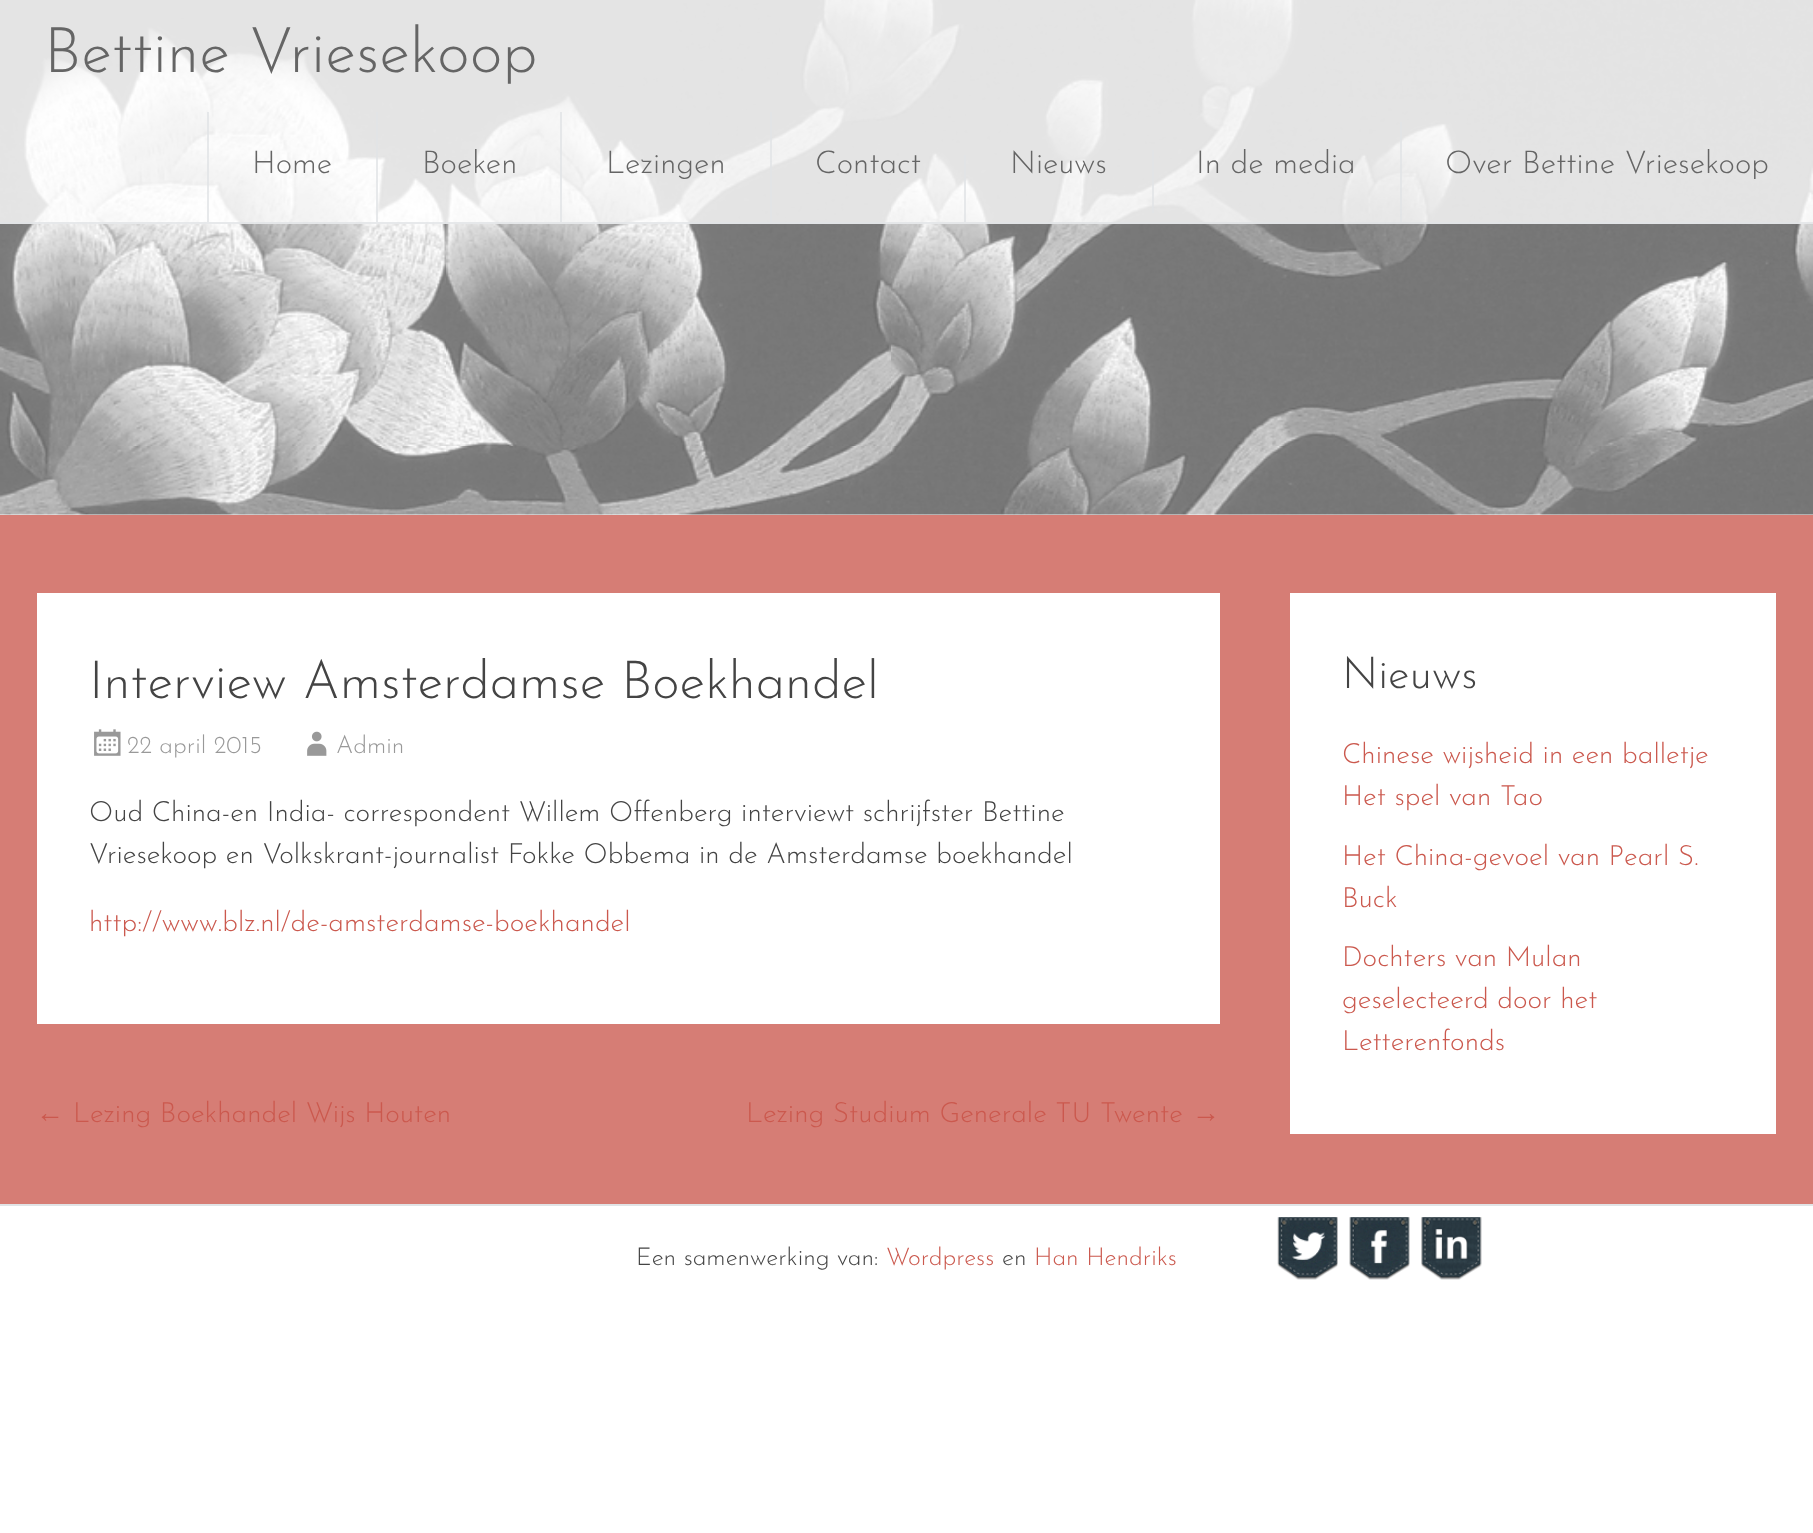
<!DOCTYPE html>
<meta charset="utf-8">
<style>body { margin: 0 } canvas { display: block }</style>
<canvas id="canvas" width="1813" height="1533"></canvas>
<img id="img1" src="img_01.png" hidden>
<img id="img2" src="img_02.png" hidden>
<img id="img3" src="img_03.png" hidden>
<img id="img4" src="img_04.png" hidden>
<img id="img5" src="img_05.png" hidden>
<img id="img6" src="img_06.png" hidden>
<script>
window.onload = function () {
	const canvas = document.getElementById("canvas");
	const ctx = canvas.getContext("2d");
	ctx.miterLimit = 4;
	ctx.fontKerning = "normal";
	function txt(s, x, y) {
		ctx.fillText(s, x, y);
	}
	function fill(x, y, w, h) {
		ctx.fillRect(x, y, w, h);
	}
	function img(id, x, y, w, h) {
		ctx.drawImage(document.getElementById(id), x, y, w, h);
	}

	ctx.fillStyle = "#FFFFFF";
	fill(0, 0, 1813, 1533);
	img("img1", 0, 0, 1813, 515);
	ctx.fillStyle = "rgba(255, 255, 255, 0.8)";
	fill(0, 0, 1813, 224);
	ctx.fillStyle = "rgba(225, 228, 230, 0.8)";
	fill(0, 222, 1813, 2);
	fill(207, 112, 2, 110);
	fill(376, 112, 2, 110);
	fill(560, 112, 2, 110);
	fill(770, 112, 2, 110);
	fill(964, 155, 2, 67);
	fill(1152, 150, 2, 63);
	fill(1400, 122, 2, 100);
	ctx.fillStyle = "#D67D75";
	fill(0, 515, 1813, 689);
	ctx.fillStyle = "#FFFFFF";
	fill(37, 593, 1183, 431);
	img("img2", 94, 729, 27, 27);
	img("img3", 307, 731, 20, 25);
	fill(1290, 593, 486, 541);
	ctx.fillStyle = "#E1E4E6";
	fill(0, 1204, 1813, 2);
	img("img4", 1277, 1217, 61, 63);
	img("img5", 1349, 1217, 61, 63);
	img("img6", 1421, 1217, 61, 63);
	ctx.font = "300 63px Josefin Sans";
	ctx.fillStyle = "#656565";
	txt("Bettine Vriesekoop", 44, 72);
	ctx.font = "300 31.5px Josefin Sans";
	txt("Home", 252, 173);
	txt("Boeken", 422, 173);
	txt("Lezingen", 606, 173);
	txt("Contact", 815, 173);
	txt("Nieuws", 1010, 173);
	txt("In de media", 1196, 173);
	txt("Over Bettine Vriesekoop", 1445, 173);
	ctx.font = "300 52.5px Josefin Sans";
	ctx.fillStyle = "#444444";
	txt("Interview Amsterdamse Boekhandel", 89, 698);
	ctx.font = "300 24.5px Josefin Sans";
	ctx.fillStyle = "#999999";
	txt("22 april 2015", 127, 753);
	txt("Admin", 336, 753);
	ctx.font = "300 28px Josefin Sans";
	ctx.fillStyle = "#444444";
	txt("Oud China-en India- correspondent Willem Offenberg interviewt schrijfster Bettine", 89, 821);
	txt("Vriesekoop en Volkskrant-journalist Fokke Obbema in de Amsterdamse boekhandel", 89, 863);
	ctx.fillStyle = "#CB594E";
	txt("http://www.blz.nl/de-amsterdamse-boekhandel", 89, 931);
	ctx.font = "28px Liberation Sans";
	txt("←", 36, 1122);
	ctx.font = "300 28px Josefin Sans";
	txt("Lezing Boekhandel Wijs Houten", 73, 1122);
	txt("Lezing Studium Generale TU Twente", 746, 1122);
	ctx.font = "28px Liberation Sans";
	txt("→", 1192, 1122);
	ctx.font = "300 44px Josefin Sans";
	ctx.fillStyle = "#444444";
	txt("Nieuws", 1342, 688);
	ctx.font = "300 28px Josefin Sans";
	ctx.fillStyle = "#CB594E";
	txt("Chinese wijsheid in een balletje", 1342, 763);
	txt("Het spel van Tao", 1342, 805);
	txt("Het China-gevoel van Pearl S.", 1342, 865);
	txt("Buck", 1342, 907);
	txt("Dochters van Mulan", 1342, 966);
	txt("geselecteerd door het", 1342, 1008);
	txt("Letterenfonds", 1342, 1050);
	ctx.font = "300 24.5px Josefin Sans";
	ctx.fillStyle = "#444444";
	txt("Een samenwerking van:", 636, 1265);
	ctx.fillStyle = "#CB594E";
	txt("Wordpress", 886, 1265);
	ctx.fillStyle = "#444444";
	txt("en", 1002, 1265);
	ctx.fillStyle = "#CB594E";
	txt("Han Hendriks", 1034, 1265);
};
</script>
